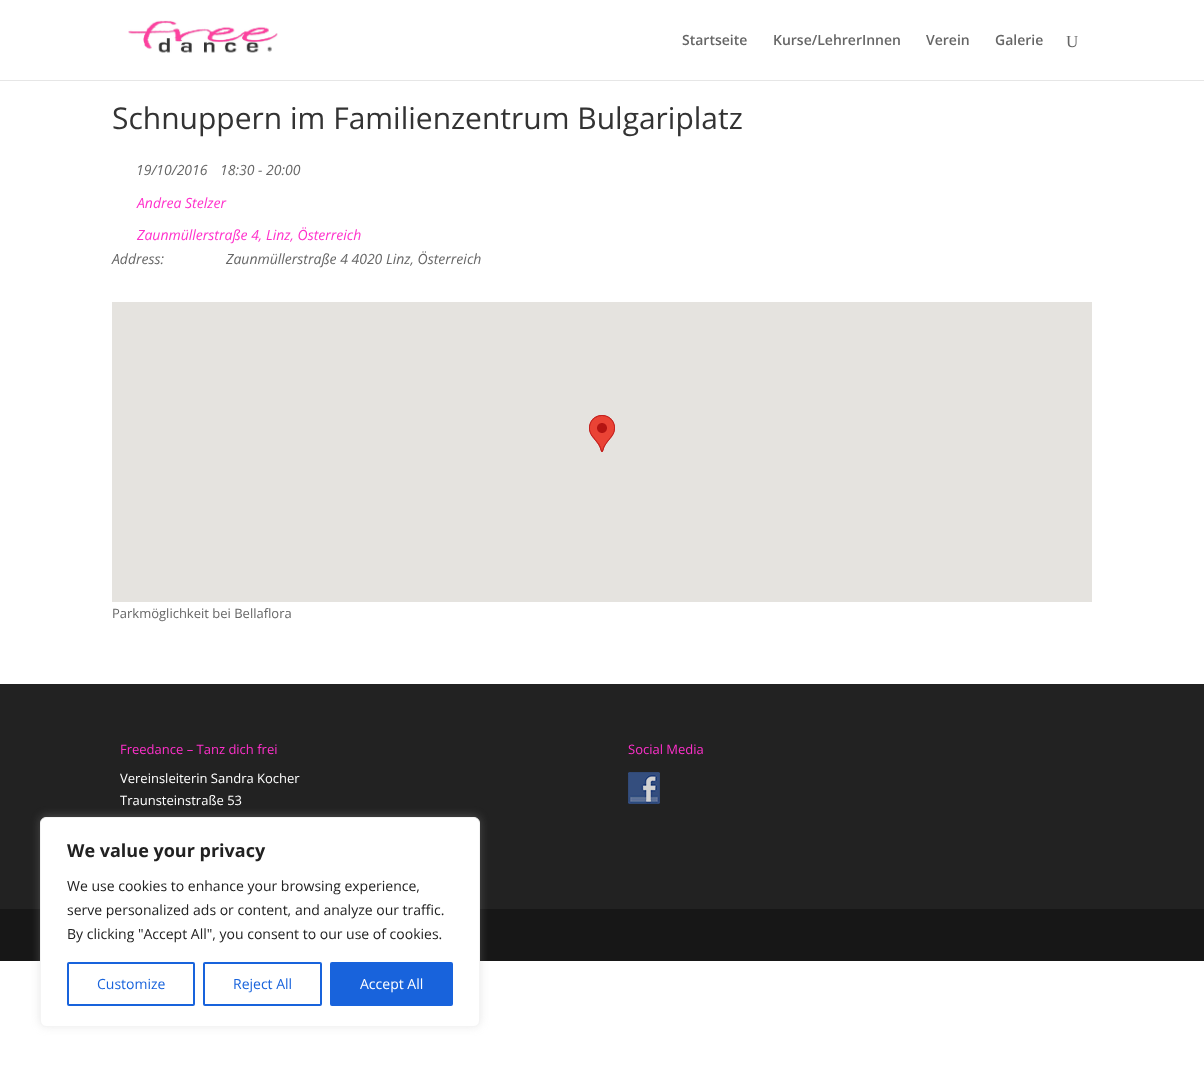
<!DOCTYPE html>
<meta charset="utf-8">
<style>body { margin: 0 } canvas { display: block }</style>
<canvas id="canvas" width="1204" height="1067"></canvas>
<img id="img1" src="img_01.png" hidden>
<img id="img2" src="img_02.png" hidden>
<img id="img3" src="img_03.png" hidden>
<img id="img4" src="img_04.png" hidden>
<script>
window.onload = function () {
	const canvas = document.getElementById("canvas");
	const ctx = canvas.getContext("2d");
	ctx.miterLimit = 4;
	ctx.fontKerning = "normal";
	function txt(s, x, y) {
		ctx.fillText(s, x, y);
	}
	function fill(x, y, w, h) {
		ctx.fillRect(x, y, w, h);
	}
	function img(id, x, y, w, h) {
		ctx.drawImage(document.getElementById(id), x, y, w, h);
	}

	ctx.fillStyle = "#FFFFFF";
	fill(0, 0, 1204, 1067);
	ctx.fillStyle = "#E6E6E6";
	fill(0, 80, 1204, 1);
	img("img1", 128, 20, 150, 33);
	ctx.fillStyle = "#E5E3DF";
	fill(112, 302, 980, 300);
	img("img2", 589, 415, 26, 37);
	img("img3", 589, 415, 26, 37);
	ctx.fillStyle = "#222222";
	fill(0, 684, 1204, 225);
	img("img4", 628, 772, 32, 32);
	ctx.fillStyle = "#171717";
	fill(0, 909, 1204, 52);
	ctx.fillStyle = "rgba(172, 171, 171, 0.3)";
	ctx.filter = "blur(5px)";
	ctx.beginPath();
	ctx.roundRect(40, 816, 440, 210, 6);
	ctx.fill();
	ctx.filter = "none";
	ctx.fillStyle = "#FFFFFF";
	ctx.beginPath();
	ctx.roundRect(40.5, 817.5, 439, 209, 5.5);
	ctx.fill();
	ctx.strokeStyle = "#F4F4F4";
	ctx.stroke();
	ctx.beginPath();
	ctx.roundRect(68, 963, 126, 42, 1);
	ctx.strokeStyle = "#1863DC";
	ctx.lineWidth = 2;
	ctx.stroke();
	ctx.beginPath();
	ctx.roundRect(204, 963, 117, 42, 1);
	ctx.stroke();
	ctx.fillStyle = "#1863DC";
	ctx.beginPath();
	ctx.roundRect(331, 963, 121, 42, 1);
	ctx.fill();
	ctx.stroke();
	ctx.font = "600 14px Open Sans";
	ctx.fillStyle = "#666666";
	txt("Startseite", 682, 45);
	txt("Kurse/LehrerInnen", 773, 45);
	txt("Verein", 926, 45);
	txt("Galerie", 995, 45);
	ctx.font = "17px Liberation Serif";
	txt("U", 1066, 47);
	ctx.font = "30px Open Sans";
	ctx.fillStyle = "#333333";
	txt("Schnuppern im Familienzentrum Bulgariplatz", 112, 129);
	ctx.font = "italic 14px Open Sans";
	ctx.fillStyle = "#666666";
	txt("19/10/2016", 136, 175);
	txt("18:30 - 20:00", 220, 175);
	ctx.fillStyle = "#FF30CB";
	txt("Andrea Stelzer", 137, 208);
	txt("Zaunmüllerstraße 4, Linz, Österreich", 137, 240);
	ctx.fillStyle = "#666666";
	txt("Address:", 112, 264);
	txt("Zaunmüllerstraße 4 4020 Linz, Österreich", 226, 264);
	ctx.font = "13px Open Sans";
	txt("Parkmöglichkeit bei Bellaflora", 112, 618);
	ctx.fillStyle = "#FF30CB";
	txt("Freedance – Tanz dich frei", 120, 754);
	ctx.fillStyle = "#FFFFFF";
	txt("Vereinsleiterin Sandra Kocher", 120, 783);
	txt("Traunsteinstraße 53", 120, 805);
	ctx.fillStyle = "#FF30CB";
	txt("Social Media", 628, 754);
	ctx.font = "bold 18px Open Sans";
	ctx.fillStyle = "#212121";
	txt("We value your privacy", 67, 857);
	ctx.font = "14px Open Sans";
	txt("We use cookies to enhance your browsing experience,", 67, 891);
	txt("serve personalized ads or content, and analyze our traffic.", 67, 915);
	txt("By clicking \"Accept All\", you consent to our use of cookies.", 67, 939);
	ctx.fillStyle = "#1863DC";
	txt("Customize", 97, 989);
	txt("Reject All", 233, 989);
	ctx.fillStyle = "#FFFFFF";
	txt("Accept All", 360, 989);
};
</script>
